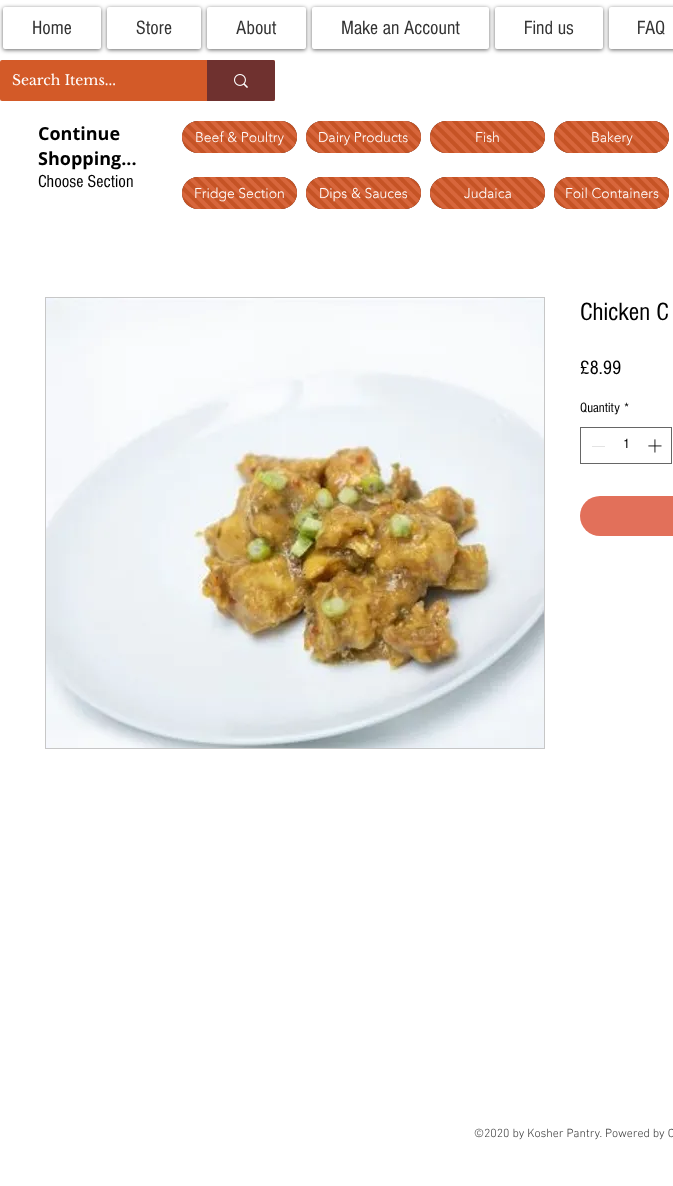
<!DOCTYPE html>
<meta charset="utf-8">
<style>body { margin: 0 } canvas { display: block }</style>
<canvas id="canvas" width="673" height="1186"></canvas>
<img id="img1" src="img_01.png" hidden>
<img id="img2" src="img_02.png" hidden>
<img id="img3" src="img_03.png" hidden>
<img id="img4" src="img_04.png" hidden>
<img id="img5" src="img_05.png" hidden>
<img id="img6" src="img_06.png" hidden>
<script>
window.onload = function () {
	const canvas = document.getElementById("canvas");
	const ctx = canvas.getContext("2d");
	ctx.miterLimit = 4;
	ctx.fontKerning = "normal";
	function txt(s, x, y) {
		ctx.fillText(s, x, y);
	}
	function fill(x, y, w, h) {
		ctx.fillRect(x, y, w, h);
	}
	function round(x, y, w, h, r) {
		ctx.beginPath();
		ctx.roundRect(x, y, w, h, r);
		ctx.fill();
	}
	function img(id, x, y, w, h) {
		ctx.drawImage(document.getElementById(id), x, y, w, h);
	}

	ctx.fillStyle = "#FFFFFF";
	fill(0, 0, 673, 1186);
	ctx.fillStyle = "rgba(0, 0, 0, 0.6)";
	ctx.filter = "blur(2px)";
	ctx.beginPath();
	ctx.roundRect(3, 8, 98, 42, 2);
	ctx.fill();
	ctx.filter = "none";
	ctx.fillStyle = "#FFFFFF";
	round(3, 7, 98, 42, 2);
	ctx.fillStyle = "rgba(0, 0, 0, 0.6)";
	ctx.filter = "blur(2px)";
	ctx.beginPath();
	ctx.roundRect(107, 8, 94, 42, 2);
	ctx.fill();
	ctx.filter = "none";
	ctx.fillStyle = "#FFFFFF";
	round(107, 7, 94, 42, 2);
	ctx.fillStyle = "rgba(0, 0, 0, 0.6)";
	ctx.filter = "blur(2px)";
	ctx.beginPath();
	ctx.roundRect(207, 8, 99, 42, 2);
	ctx.fill();
	ctx.filter = "none";
	ctx.fillStyle = "#FFFFFF";
	round(207, 7, 99, 42, 2);
	ctx.fillStyle = "rgba(0, 0, 0, 0.6)";
	ctx.filter = "blur(2px)";
	ctx.beginPath();
	ctx.roundRect(312, 8, 177, 42, 2);
	ctx.fill();
	ctx.filter = "none";
	ctx.fillStyle = "#FFFFFF";
	round(312, 7, 177, 42, 2);
	ctx.fillStyle = "rgba(0, 0, 0, 0.6)";
	ctx.filter = "blur(2px)";
	ctx.beginPath();
	ctx.roundRect(495, 8, 108, 42, 2);
	ctx.fill();
	ctx.filter = "none";
	ctx.fillStyle = "#FFFFFF";
	round(495, 7, 108, 42, 2);
	ctx.fillStyle = "rgba(0, 0, 0, 0.6)";
	ctx.filter = "blur(2px)";
	ctx.beginPath();
	ctx.roundRect(609, 8, 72, 42, 2);
	ctx.fill();
	ctx.filter = "none";
	ctx.fillStyle = "#FFFFFF";
	round(609, 7, 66, 42, 2);
	ctx.fillStyle = "#D35A28";
	round(0, 60, 275, 41, 2);
	ctx.fillStyle = "#6F312F";
	ctx.beginPath();
	ctx.roundRect(207, 60, 68, 41, [0, 2, 2, 0]);
	ctx.fill();
	img("img1", 234, 74, 14, 14);
	ctx.fillStyle = "#471B12";
	round(182, 121, 115, 32, 16);
	img("img2", 182, 121, 115, 32);
	round(306, 121, 115, 32, 16);
	img("img3", 306, 121, 115, 32);
	round(430, 121, 115, 32, 16);
	img("img4", 430, 121, 115, 32);
	round(554, 121, 115, 32, 16);
	img("img3", 554, 121, 115, 32);
	round(182, 177, 115, 32, 16);
	img("img2", 182, 177, 115, 32);
	round(306, 177, 115, 32, 16);
	img("img3", 306, 177, 115, 32);
	round(430, 177, 115, 32, 16);
	img("img4", 430, 177, 115, 32);
	round(554, 177, 115, 32, 16);
	img("img3", 554, 177, 115, 32);
	ctx.strokeStyle = "#C7C7C7";
	ctx.strokeRect(45.5, 297.5, 499, 451);
	img("img5", 46, 298, 498, 450);
	ctx.strokeStyle = "#666666";
	ctx.strokeRect(580.5, 427.5, 91, 36);
	ctx.fillStyle = "#E3E3E3";
	fill(592, 446, 13, 1);
	img("img6", 648, 439, 14, 14);
	ctx.fillStyle = "#E2705A";
	round(580, 496, 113, 40, 20);
	ctx.font = "20px 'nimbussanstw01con'";
	ctx.fillStyle = "#333333";
	txt("Home", 32, 34);
	txt("Store", 136, 34);
	txt("About", 236, 34);
	txt("Make an Account", 341, 34);
	txt("Find us", 524, 34);
	txt("FAQ", 637, 34);
	ctx.font = "14px Libre Baskerville";
	ctx.fillStyle = "#FFFFFF";
	txt("Search Items...", 12, 85);
	ctx.font = "bold 18px Open Sans";
	ctx.fillStyle = "#000000";
	txt("Continue", 38, 140);
	txt("Shopping...", 38, 165);
	ctx.font = "18px 'nimbussanstw01con'";
	txt("Choose Section", 38, 187);
	ctx.font = "300 14px 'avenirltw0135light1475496'";
	ctx.fillStyle = "#FFFFFF";
	txt("Beef & Poultry", 195, 142);
	txt("Dairy Products", 318, 142);
	txt("Fish", 475, 142);
	txt("Bakery", 591, 142);
	txt("Fridge Section", 194, 198);
	txt("Dips & Sauces", 319, 198);
	txt("Judaica", 464, 198);
	txt("Foil Containers", 565, 198);
	ctx.font = "26px 'nimbussanstw01con'";
	ctx.fillStyle = "#000000";
	txt("Chicken C", 580, 320);
	ctx.font = "20px 'nimbussanstw01con'";
	txt("£8.99", 580, 374);
	ctx.font = "14px 'nimbussanstw01con'";
	txt("Quantity", 580, 412);
	txt("*", 624, 412);
	txt("1", 623, 448);
	ctx.font = "300 12px 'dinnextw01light'";
	ctx.fillStyle = "#333333";
	txt("©2020 by Kosher Pantry. Powered by C", 474, 1137);
};
</script>
